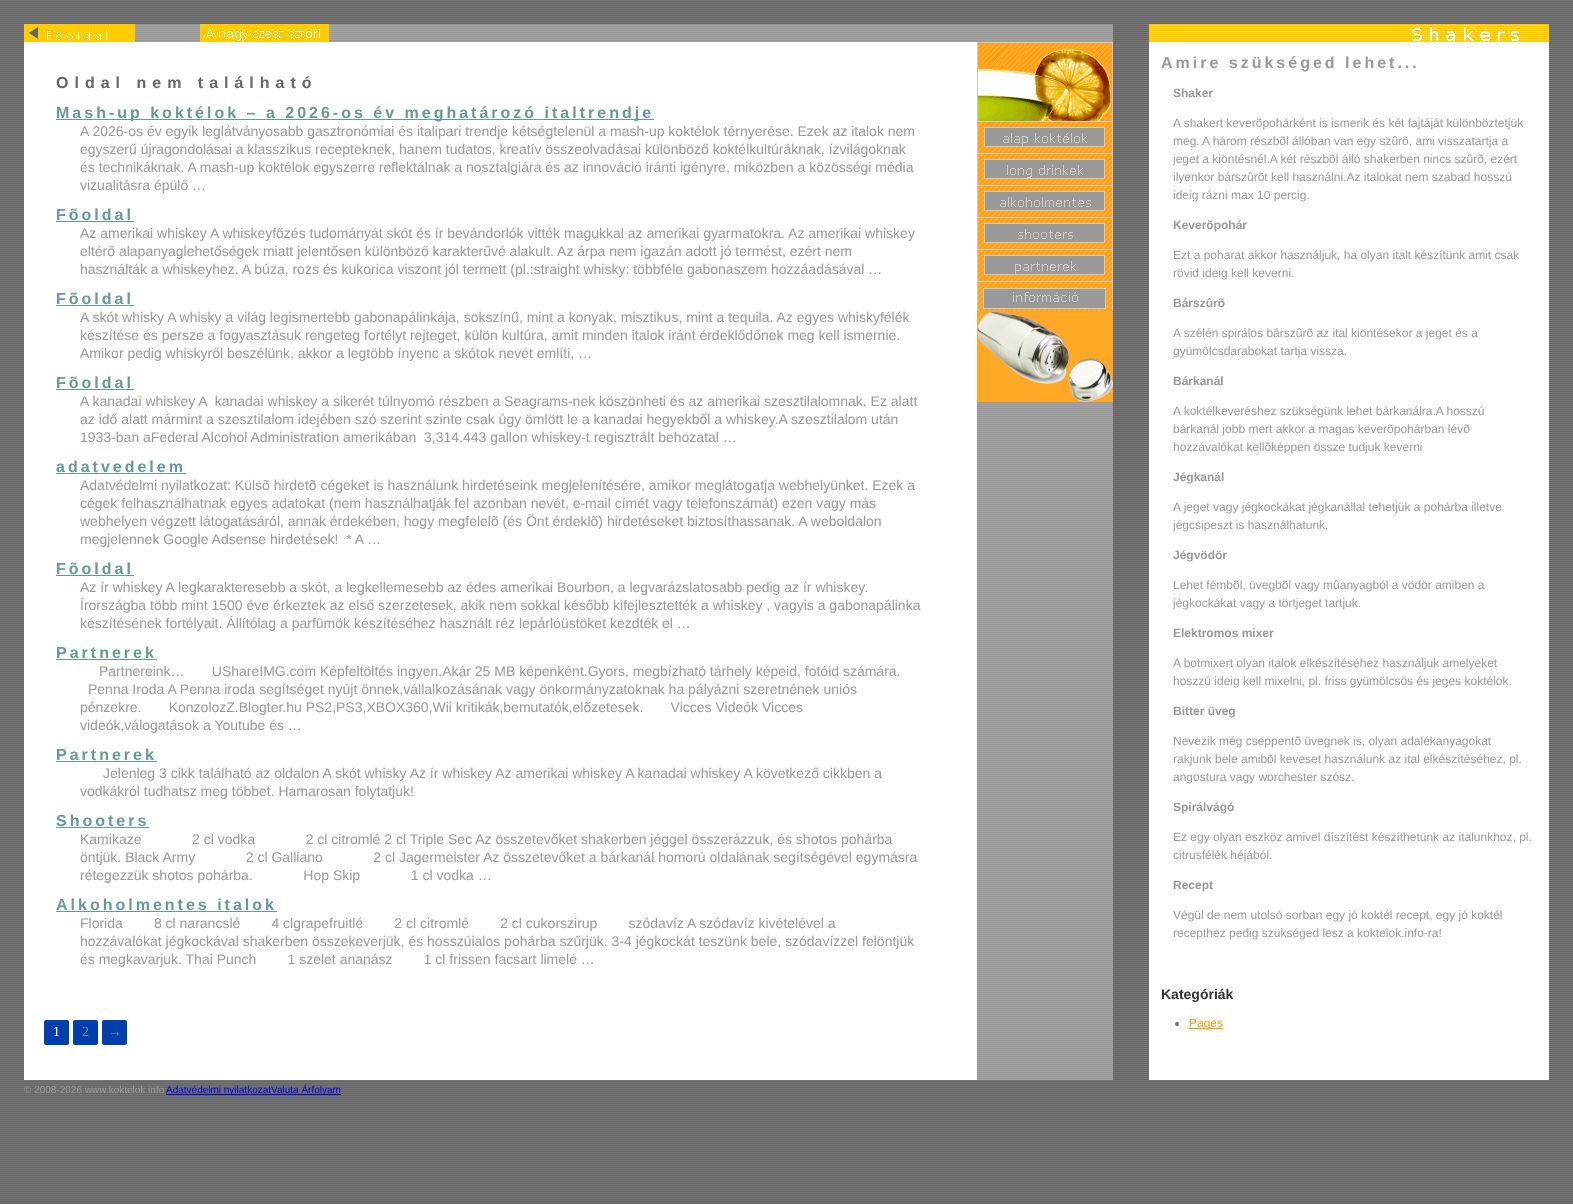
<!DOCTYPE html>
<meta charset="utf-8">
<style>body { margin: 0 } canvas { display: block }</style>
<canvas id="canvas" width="1573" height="1204"></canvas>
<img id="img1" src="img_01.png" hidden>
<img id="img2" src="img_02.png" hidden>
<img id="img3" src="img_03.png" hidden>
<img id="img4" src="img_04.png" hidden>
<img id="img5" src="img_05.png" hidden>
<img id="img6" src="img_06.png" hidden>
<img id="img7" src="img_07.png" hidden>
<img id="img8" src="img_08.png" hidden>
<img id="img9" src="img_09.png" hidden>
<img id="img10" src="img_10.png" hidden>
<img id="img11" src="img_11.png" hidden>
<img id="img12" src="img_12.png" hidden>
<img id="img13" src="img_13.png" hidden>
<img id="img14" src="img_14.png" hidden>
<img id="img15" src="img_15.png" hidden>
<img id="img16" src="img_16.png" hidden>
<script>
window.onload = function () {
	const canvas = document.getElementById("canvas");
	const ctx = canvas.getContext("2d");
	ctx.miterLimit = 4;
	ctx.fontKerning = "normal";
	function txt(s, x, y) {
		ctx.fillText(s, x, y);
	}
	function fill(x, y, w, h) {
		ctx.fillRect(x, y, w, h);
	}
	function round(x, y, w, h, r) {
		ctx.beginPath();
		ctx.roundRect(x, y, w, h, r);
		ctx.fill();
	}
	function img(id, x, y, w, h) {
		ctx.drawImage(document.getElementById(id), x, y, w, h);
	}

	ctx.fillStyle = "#666666";
	fill(0, 0, 1573, 1204);
	img("img1", 0, 0, 1573, 1203);
	img("img2", 135, 24, 842, 18);
	img("img3", 24, 24, 111, 18);
	img("img4", 200, 24, 129, 18);
	img("img5", 977, 24, 136, 18);
	img("img6", 1149, 24, 400, 18);
	img("img7", 1412, 27, 107, 14);
	ctx.fillStyle = "#FFFFFF";
	fill(24, 42, 953, 1038);
	ctx.fillStyle = "#669999";
	fill(56, 119, 598, 1);
	fill(56, 221, 78, 1);
	fill(56, 305, 78, 1);
	fill(56, 389, 78, 1);
	fill(56, 473, 130, 1);
	fill(56, 575, 78, 1);
	fill(56, 659, 101, 1);
	fill(56, 761, 101, 1);
	fill(56, 827, 93, 1);
	fill(56, 911, 221, 1);
	ctx.fillStyle = "#013FAE";
	round(44, 1020, 25, 25, 2);
	round(73, 1020, 25, 25, 2);
	round(102, 1020, 25, 25, 2);
	img("img8", 977, 402, 136, 678);
	img("img9", 977, 42, 136, 79);
	ctx.fillStyle = "#999999";
	fill(985, 128, 119, 18);
	img("img10", 977, 121, 136, 32);
	fill(985, 160, 119, 18);
	img("img11", 977, 153, 136, 32);
	fill(985, 192, 119, 18);
	img("img12", 977, 185, 136, 32);
	fill(985, 224, 119, 18);
	img("img13", 977, 217, 136, 32);
	fill(985, 256, 119, 18);
	img("img14", 977, 249, 136, 32);
	fill(984, 289, 121, 19);
	img("img15", 977, 281, 136, 30);
	img("img16", 977, 311, 136, 91);
	ctx.fillStyle = "#FFFFFF";
	fill(1149, 42, 400, 1038);
	ctx.fillStyle = "#637173";
	ctx.beginPath();
	ctx.arc(1177, 1024, 2, 0, Math.PI * 2);
	ctx.fill();
	ctx.fillStyle = "#FF9900";
	fill(1189, 1028, 34, 1);
	ctx.fillStyle = "#0000EE";
	fill(166, 1094, 175, 1);
	ctx.letterSpacing = "6px";
	ctx.font = "bold 16px Liberation Sans";
	ctx.fillStyle = "#666666";
	txt("Oldal nem található", 56, 88);
	ctx.letterSpacing = "3px";
	ctx.fillStyle = "#669999";
	txt("Mash-up koktélok – a 2026-os év meghatározó italtrendje", 56, 118);
	ctx.letterSpacing = "0px";
	ctx.font = "14px Liberation Sans";
	ctx.fillStyle = "#999999";
	txt("A 2026-os év egyik leglátványosabb gasztronómiai és italipari trendje kétségtelenül a mash-up koktélok térnyerése. Ezek az italok nem", 80, 136);
	txt("egyszerű újragondolásai a klasszikus recepteknek, hanem tudatos, kreatív összeolvadásai különböző koktélkultúráknak, ízvilágoknak", 80, 154);
	txt("és technikáknak. A mash-up koktélok egyszerre reflektálnak a nosztalgiára és az innováció iránti igényre, miközben a közösségi média", 80, 172);
	txt("vizualitásra épülő …", 80, 190);
	ctx.letterSpacing = "3px";
	ctx.font = "bold 16px Liberation Sans";
	ctx.fillStyle = "#669999";
	txt("Fõoldal", 56, 220);
	ctx.letterSpacing = "0px";
	ctx.font = "14px Liberation Sans";
	ctx.fillStyle = "#999999";
	txt("Az amerikai whiskey A whiskeyfőzés tudományát skót és ír bevándorlók vitték magukkal az amerikai gyarmatokra. Az amerikai whiskey", 80, 238);
	txt("eltérő alapanyaglehetőségek miatt jelentősen különböző karakterűvé alakult. Az árpa nem igazán adott jó termést, ezért nem", 80, 256);
	txt("használták a whiskeyhez. A búza, rozs és kukorica viszont jól termett (pl.:straight whisky: többféle gabonaszem hozzáadásával …", 80, 274);
	ctx.letterSpacing = "3px";
	ctx.font = "bold 16px Liberation Sans";
	ctx.fillStyle = "#669999";
	txt("Fõoldal", 56, 304);
	ctx.letterSpacing = "0px";
	ctx.font = "14px Liberation Sans";
	ctx.fillStyle = "#999999";
	txt("A skót whisky A whisky a világ legismertebb gabonapálinkája, sokszínű, mint a konyak, misztikus, mint a tequila. Az egyes whiskyfélék", 80, 322);
	txt("készítése és persze a fogyasztásuk rengeteg fortélyt rejteget, külön kultúra, amit minden italok iránt érdeklődőnek meg kell ismernie.", 80, 340);
	txt("Amikor pedig whiskyről beszélünk, akkor a legtöbb ínyenc a skótok nevét említi, …", 80, 358);
	ctx.letterSpacing = "3px";
	ctx.font = "bold 16px Liberation Sans";
	ctx.fillStyle = "#669999";
	txt("Fõoldal", 56, 388);
	ctx.letterSpacing = "0px";
	ctx.font = "14px Liberation Sans";
	ctx.fillStyle = "#999999";
	txt("A kanadai whiskey A  kanadai whiskey a sikerét túlnyomó részben a Seagrams-nek köszönheti és az amerikai szesztilalomnak. Ez alatt", 80, 406);
	txt("az idő alatt mármint a szesztilalom idejében szó szerint szinte csak úgy ömlött le a kanadai hegyekből a whiskey.A szesztilalom után", 80, 424);
	txt("1933-ban aFederal Alcohol Administration amerikában  3,314,443 gallon whiskey-t regisztrált behozatal …", 80, 442);
	ctx.letterSpacing = "3px";
	ctx.font = "bold 16px Liberation Sans";
	ctx.fillStyle = "#669999";
	txt("adatvedelem", 56, 472);
	ctx.letterSpacing = "0px";
	ctx.font = "14px Liberation Sans";
	ctx.fillStyle = "#999999";
	txt("Adatvédelmi nyilatkozat: Külsõ hirdetõ cégeket is használunk hirdetéseink megjelenítésére, amikor meglátogatja webhelyünket. Ezek a", 80, 490);
	txt("cégek felhasználhatnak egyes adatokat (nem használhatják fel azonban nevét, e-mail címét vagy telefonszámát) ezen vagy más", 80, 508);
	txt("webhelyen végzett látogatásáról, annak érdekében, hogy megfelelõ (és Önt érdeklõ) hirdetéseket biztosíthassanak. A weboldalon", 80, 526);
	txt("megjelennek Google Adsense hirdetések!  * A …", 80, 544);
	ctx.letterSpacing = "3px";
	ctx.font = "bold 16px Liberation Sans";
	ctx.fillStyle = "#669999";
	txt("Fõoldal", 56, 574);
	ctx.letterSpacing = "0px";
	ctx.font = "14px Liberation Sans";
	ctx.fillStyle = "#999999";
	txt("Az ír whiskey A legkarakteresebb a skót, a legkellemesebb az édes amerikai Bourbon, a legvarázslatosabb pedig az ír whiskey.", 80, 592);
	txt("Írországba több mint 1500 éve érkeztek az első szerzetesek, akik nem sokkal később kifejlesztették a whiskey , vagyis a gabonapálinka", 80, 610);
	txt("készítésének fortélyait. Állítólag a parfümök készítéséhez használt réz lepárlóüstöket kezdték el …", 80, 628);
	ctx.letterSpacing = "3px";
	ctx.font = "bold 16px Liberation Sans";
	ctx.fillStyle = "#669999";
	txt("Partnerek", 56, 658);
	ctx.letterSpacing = "0px";
	ctx.font = "14px Liberation Sans";
	ctx.fillStyle = "#999999";
	txt("Partnereink…       UShareIMG.com Képfeltöltés ingyen.Akár 25 MB képenként.Gyors, megbízható tárhely képeid, fotóid számára.", 99, 676);
	txt("Penna Iroda A Penna iroda segítséget nyújt önnek,vállalkozásának vagy önkormányzatoknak ha pályázni szeretnének uniós", 88, 694);
	txt("pénzekre.       KonzolozZ.Blogter.hu PS2,PS3,XBOX360,Wii kritikák,bemutatók,elõzetesek.       Vicces Videók Vicces", 80, 712);
	txt("videók,válogatások a Youtube és …", 80, 730);
	ctx.letterSpacing = "3px";
	ctx.font = "bold 16px Liberation Sans";
	ctx.fillStyle = "#669999";
	txt("Partnerek", 56, 760);
	ctx.letterSpacing = "0px";
	ctx.font = "14px Liberation Sans";
	ctx.fillStyle = "#999999";
	txt("Jelenleg 3 cikk található az oldalon A skót whisky Az ír whiskey Az amerikai whiskey A kanadai whiskey A következő cikkben a", 103, 778);
	txt("vodkákról tudhatsz meg többet. Hamarosan folytatjuk!", 80, 796);
	ctx.letterSpacing = "3px";
	ctx.font = "bold 16px Liberation Sans";
	ctx.fillStyle = "#669999";
	txt("Shooters", 56, 826);
	ctx.letterSpacing = "0px";
	ctx.font = "14px Liberation Sans";
	ctx.fillStyle = "#999999";
	txt("Kamikaze             2 cl vodka             2 cl citromlé 2 cl Triple Sec Az összetevőket shakerben jéggel összerázzuk, és shotos pohárba", 80, 844);
	txt("öntjük. Black Army             2 cl Galliano             2 cl Jagermeister Az összetevőket a bárkanál homorú oldalának segítségével egymásra", 80, 862);
	txt("rétegezzük shotos pohárba.             Hop Skip             1 cl vodka …", 80, 880);
	ctx.letterSpacing = "3px";
	ctx.font = "bold 16px Liberation Sans";
	ctx.fillStyle = "#669999";
	txt("Alkoholmentes italok", 56, 910);
	ctx.letterSpacing = "0px";
	ctx.font = "14px Liberation Sans";
	ctx.fillStyle = "#999999";
	txt("Florida        8 cl narancslé        4 clgrapefruitlé        2 cl citromlé        2 cl cukorszirup        szódavíz A szódavíz kivételével a", 80, 928);
	txt("hozzávalókat jégkockával shakerben összekeverjük, és hosszúialos pohárba szűrjük. 3-4 jégkockát teszünk bele, szódavízzel felöntjük", 80, 946);
	txt("és megkavarjuk. Thai Punch        1 szelet ananász        1 cl frissen facsart limelé …", 80, 964);
	ctx.font = "14px Liberation Serif";
	ctx.fillStyle = "#FFFFFF";
	txt("1", 53, 1036);
	ctx.fillStyle = "#669999";
	txt("2", 82, 1036);
	txt("→", 108, 1036);
	ctx.letterSpacing = "3px";
	ctx.font = "bold 16px Liberation Sans";
	ctx.fillStyle = "#999999";
	txt("Amire szükséged lehet...", 1161, 68);
	ctx.letterSpacing = "0px";
	ctx.font = "bold 12px Liberation Sans";
	txt("Shaker", 1173, 97);
	ctx.font = "12px Liberation Sans";
	txt("A shakert keverõpohárként is ismerik és két fajtáját különböztetjük", 1173, 127);
	txt("meg.", 1173, 145);
	txt("A három részbõl állóban van egy szûrõ, ami visszatartja a", 1202, 145);
	txt("jeget a kiöntésnél.A két részbõl álló shakerben nincs szûrõ, ezért", 1173, 163);
	txt("ilyenkor bárszûrõt kell használni.Az italokat nem szabad hosszú", 1173, 181);
	txt("ideig rázni max 10 percig.", 1173, 199);
	ctx.font = "bold 12px Liberation Sans";
	txt("Keverõpohár", 1173, 229);
	ctx.font = "12px Liberation Sans";
	txt("Ezt a poharat akkor használjuk, ha olyan italt készítünk amit csak", 1173, 259);
	txt("rövid ideig kell keverni.", 1173, 277);
	ctx.font = "bold 12px Liberation Sans";
	txt("Bárszûrõ", 1173, 307);
	ctx.font = "12px Liberation Sans";
	txt("A szélén spirálos bárszûrõ az ital kiöntésekor a jeget és a", 1173, 337);
	txt("gyümölcsdarabokat tartja vissza.", 1173, 355);
	ctx.font = "bold 12px Liberation Sans";
	txt("Bárkanál", 1173, 385);
	ctx.font = "12px Liberation Sans";
	txt("A koktélkeveréshez szükségünk lehet bárkanálra.A hosszú", 1173, 415);
	txt("bárkanál jobb mert akkor a magas keverõpohárban lévõ", 1173, 433);
	txt("hozzávalókat kellõképpen össze tudjuk keverni", 1173, 451);
	ctx.font = "bold 12px Liberation Sans";
	txt("Jégkanál", 1173, 481);
	ctx.font = "12px Liberation Sans";
	txt("A jeget vagy jégkockákat jégkanállal tehetjük a pohárba illetve", 1173, 511);
	txt("jégcsipeszt is használhatunk.", 1173, 529);
	ctx.font = "bold 12px Liberation Sans";
	txt("Jégvödör", 1173, 559);
	ctx.font = "12px Liberation Sans";
	txt("Lehet fémbõl, üvegbõl vagy mûanyagból a vödör amiben a", 1173, 589);
	txt("jégkockákat vagy a törtjeget tartjuk.", 1173, 607);
	ctx.font = "bold 12px Liberation Sans";
	txt("Elektromos mixer", 1173, 637);
	ctx.font = "12px Liberation Sans";
	txt("A botmixert olyan italok elkészítéséhez használjuk amelyeket", 1173, 667);
	txt("hoszzú ideig kell mixelni, pl. friss gyümölcsös és jeges koktélok.", 1173, 685);
	ctx.font = "bold 12px Liberation Sans";
	txt("Bitter üveg", 1173, 715);
	ctx.font = "12px Liberation Sans";
	txt("Nevezik még cseppentõ üvegnek is, olyan adalékanyagokat", 1173, 745);
	txt("rakjunk bele amibõl keveset használunk az ital elkészítéséhez, pl.", 1173, 763);
	txt("angostura vagy worchester szósz.", 1173, 781);
	ctx.font = "bold 12px Liberation Sans";
	txt("Spirálvágó", 1173, 811);
	ctx.font = "12px Liberation Sans";
	txt("Ez egy olyan eszköz amivel díszítést készíthetünk az italunkhoz, pl.", 1173, 841);
	txt("citrusfélék héjából.", 1173, 859);
	ctx.font = "bold 12px Liberation Sans";
	txt("Recept", 1173, 889);
	ctx.font = "12px Liberation Sans";
	txt("Végül de nem utolsó sorban egy jó koktél recept, egy jó koktél", 1173, 919);
	txt("recepthez pedig szükséged lesz a koktelok.info-ra!", 1173, 937);
	ctx.font = "bold 14px Liberation Sans";
	ctx.fillStyle = "#333333";
	txt("Kategóriák", 1161, 999);
	ctx.font = "12px Liberation Sans";
	ctx.fillStyle = "#FF9900";
	txt("Pages", 1189, 1027);
	ctx.font = "10px Liberation Sans";
	ctx.fillStyle = "#999999";
	txt("© 2008-2026 www.koktelok.info", 24, 1093);
	ctx.fillStyle = "#0000EE";
	txt("Adatvédelmi nyilatkozatValuta Árfolyam", 166, 1093);
};
</script>
